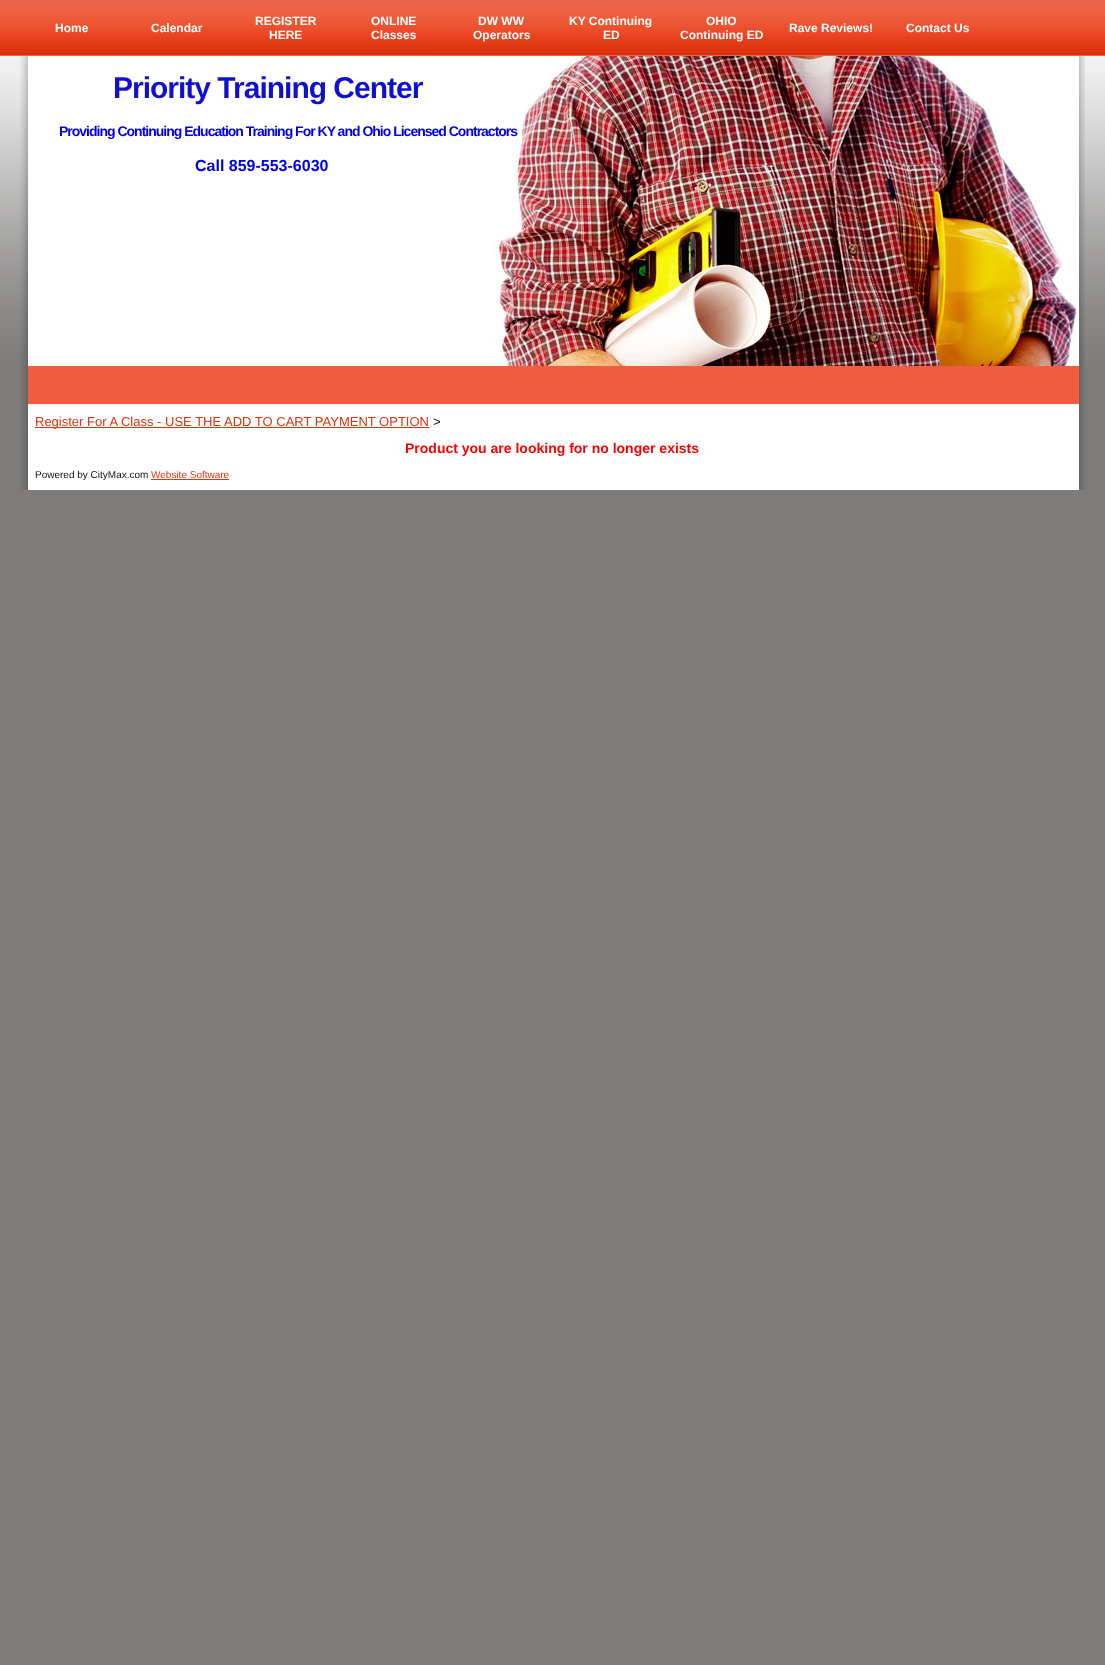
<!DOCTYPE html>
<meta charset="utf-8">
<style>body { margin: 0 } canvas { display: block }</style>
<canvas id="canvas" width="1105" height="1665"></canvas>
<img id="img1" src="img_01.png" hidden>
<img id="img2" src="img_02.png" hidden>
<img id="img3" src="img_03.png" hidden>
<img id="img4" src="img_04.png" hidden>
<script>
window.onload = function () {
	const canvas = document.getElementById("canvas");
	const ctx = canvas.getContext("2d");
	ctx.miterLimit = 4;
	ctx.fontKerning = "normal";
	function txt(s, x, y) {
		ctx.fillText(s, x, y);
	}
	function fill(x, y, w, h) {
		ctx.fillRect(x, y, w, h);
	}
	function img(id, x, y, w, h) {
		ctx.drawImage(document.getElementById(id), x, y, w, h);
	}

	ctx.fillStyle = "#FFFFFF";
	fill(0, 0, 1105, 1665);
	img("img1", 0, 0, 1105, 1665);
	img("img2", 20, 0, 1065, 55);
	img("img3", 20, 55, 1065, 349);
	img("img4", 20, 404, 1065, 86);
	ctx.fillStyle = "#DD330F";
	fill(35, 427, 394, 1);
	fill(151, 479, 78, 1);
	ctx.font = "bold 12px Liberation Sans";
	ctx.fillStyle = "#FFFFFF";
	txt("Home", 55, 32);
	txt("Calendar", 151, 32);
	txt("REGISTER", 255, 25);
	txt("HERE", 269, 39);
	txt("ONLINE", 371, 25);
	txt("Classes", 371, 39);
	txt("DW WW", 478, 25);
	txt("Operators", 473, 39);
	txt("KY Continuing", 569, 25);
	txt("ED", 603, 39);
	txt("OHIO", 706, 25);
	txt("Continuing ED", 680, 39);
	txt("Rave Reviews!", 789, 32);
	txt("Contact Us", 906, 32);
	ctx.letterSpacing = "-1px";
	ctx.font = "bold 30px Liberation Sans";
	ctx.fillStyle = "#1010D0";
	txt("Priority Training Center", 113, 98);
	ctx.font = "bold 14px Liberation Sans";
	ctx.fillStyle = "#0000E0";
	txt("Providing Continuing Education Training For KY and Ohio Licensed Contractors", 59, 136);
	ctx.letterSpacing = "0px";
	ctx.font = "bold 16px Liberation Sans";
	txt("Call 859-553-6030", 195, 171);
	ctx.font = "13px Liberation Sans";
	ctx.fillStyle = "#DD330F";
	txt("Register For A Class - USE THE ADD TO CART PAYMENT OPTION", 35, 426);
	ctx.font = "13px Liberation Mono";
	ctx.fillStyle = "#101010";
	txt(">", 433, 426);
	ctx.font = "bold 14px Liberation Sans";
	ctx.fillStyle = "#FF0000";
	txt("Product you are looking for no longer exists", 405, 453);
	ctx.font = "10px Liberation Sans";
	ctx.fillStyle = "#101010";
	txt("Powered by CityMax.com", 35, 478);
	ctx.fillStyle = "#DD330F";
	txt("Website Software", 151, 478);
};
</script>
